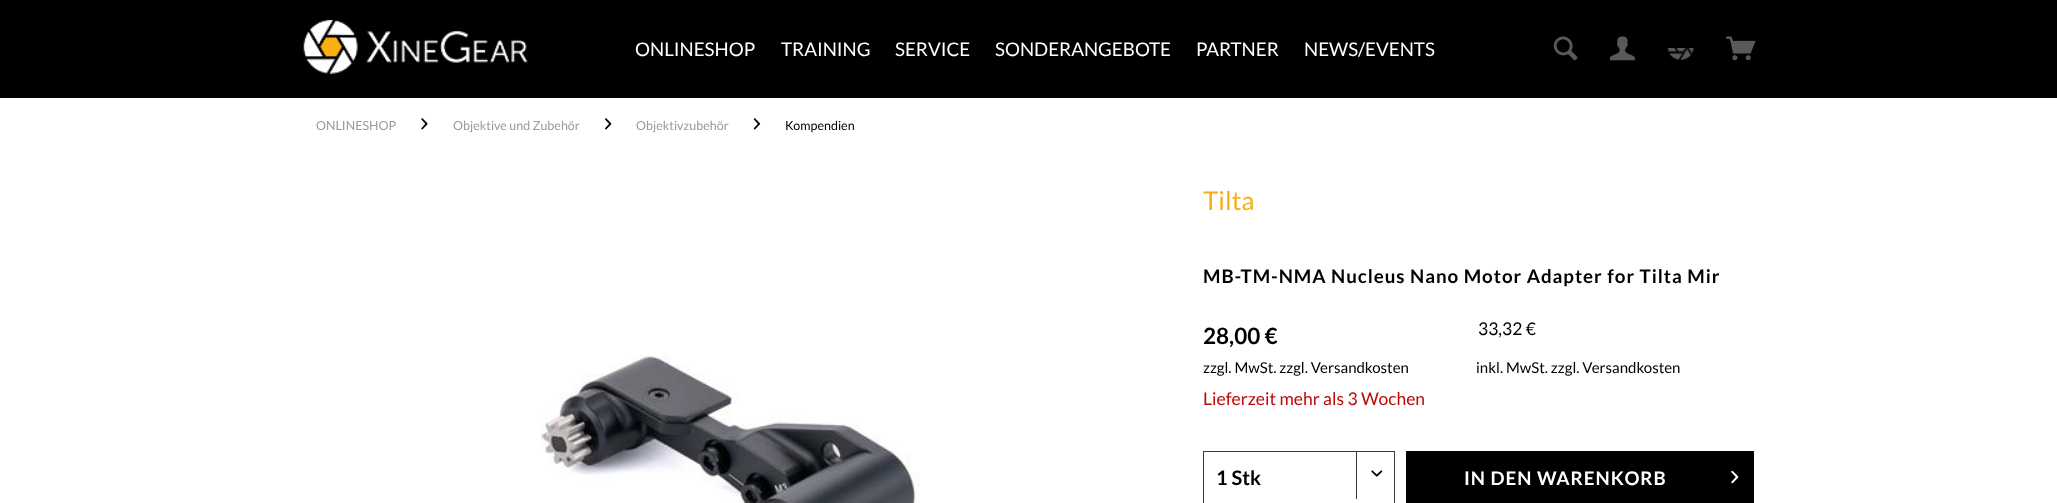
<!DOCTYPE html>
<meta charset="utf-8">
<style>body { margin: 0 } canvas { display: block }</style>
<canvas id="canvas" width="2057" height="503"></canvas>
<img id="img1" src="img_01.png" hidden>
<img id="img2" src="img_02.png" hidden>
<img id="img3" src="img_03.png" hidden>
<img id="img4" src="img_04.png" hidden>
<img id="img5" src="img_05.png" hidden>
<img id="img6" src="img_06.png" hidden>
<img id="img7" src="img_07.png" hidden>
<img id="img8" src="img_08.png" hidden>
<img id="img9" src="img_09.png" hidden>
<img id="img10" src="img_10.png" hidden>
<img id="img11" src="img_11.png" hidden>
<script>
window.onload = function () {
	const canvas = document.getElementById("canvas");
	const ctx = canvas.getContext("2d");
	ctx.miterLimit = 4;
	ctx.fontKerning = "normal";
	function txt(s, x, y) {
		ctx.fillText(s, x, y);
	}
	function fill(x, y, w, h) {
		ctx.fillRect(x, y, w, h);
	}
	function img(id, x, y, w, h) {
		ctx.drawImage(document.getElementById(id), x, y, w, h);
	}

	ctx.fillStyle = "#FFFFFF";
	fill(0, 0, 2057, 503);
	ctx.fillStyle = "#000000";
	fill(0, 0, 2057, 98);
	img("img1", 303, 20, 225, 54);
	img("img2", 1553, 36, 25, 25);
	img("img3", 1610, 36, 25, 25);
	img("img4", 1667, 48, 27, 12);
	img("img5", 1726, 36, 30, 25);
	img("img6", 421, 118, 7, 12);
	img("img7", 605, 118, 7, 12);
	img("img8", 753, 118, 8, 12);
	img("img9", 540, 354, 380, 149);
	ctx.strokeStyle = "#3B3B3B";
	ctx.strokeRect(1203.5, 451.5, 191, 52);
	ctx.fillStyle = "#3B3B3B";
	fill(1356, 451, 1, 48);
	img("img10", 1371, 470, 12, 7);
	ctx.fillStyle = "#000000";
	fill(1406, 451, 348, 52);
	img("img11", 1731, 470, 8, 14);
	ctx.font = "18.75px Lato";
	ctx.fillStyle = "#FFFFFF";
	txt("ONLINESHOP", 635, 56);
	txt("TRAINING", 781, 56);
	txt("SERVICE", 895, 56);
	txt("SONDERANGEBOTE", 995, 56);
	txt("PARTNER", 1196, 56);
	txt("NEWS/EVENTS", 1304, 56);
	ctx.font = "12.5px Lato";
	ctx.fillStyle = "#9A9A9A";
	txt("ONLINESHOP", 316, 130);
	txt("Objektive und Zubehör", 453, 130);
	txt("Objektivzubehör", 636, 130);
	ctx.fillStyle = "#000000";
	txt("Kompendien", 785, 130);
	ctx.font = "26px Lato";
	ctx.fillStyle = "#F8B014";
	txt("Tilta", 1203, 210);
	ctx.letterSpacing = "0.95px";
	ctx.font = "bold 18.75px Lato";
	ctx.fillStyle = "#000000";
	txt("MB-TM-NMA Nucleus Nano Motor Adapter for Tilta Mir", 1203, 283);
	ctx.letterSpacing = "0px";
	ctx.font = "bold 22.5px Lato";
	txt("28,00 €", 1203, 344);
	ctx.font = "17.5px Lato";
	txt("33,32 €", 1478, 335);
	ctx.font = "15px Lato";
	txt("zzgl. MwSt. zzgl. Versandkosten", 1203, 373);
	txt("inkl. MwSt. zzgl. Versandkosten", 1476, 373);
	ctx.font = "17.5px Lato";
	ctx.fillStyle = "#BC0808";
	txt("Lieferzeit mehr als 3 Wochen", 1203, 405);
	ctx.font = "bold 20px Lato";
	ctx.fillStyle = "#000000";
	txt("1 Stk", 1216, 485);
	ctx.letterSpacing = "0.95px";
	ctx.font = "bold 18.75px Lato";
	ctx.fillStyle = "#FFFFFF";
	txt("IN DEN WARENKORB", 1464, 485);
};
</script>
